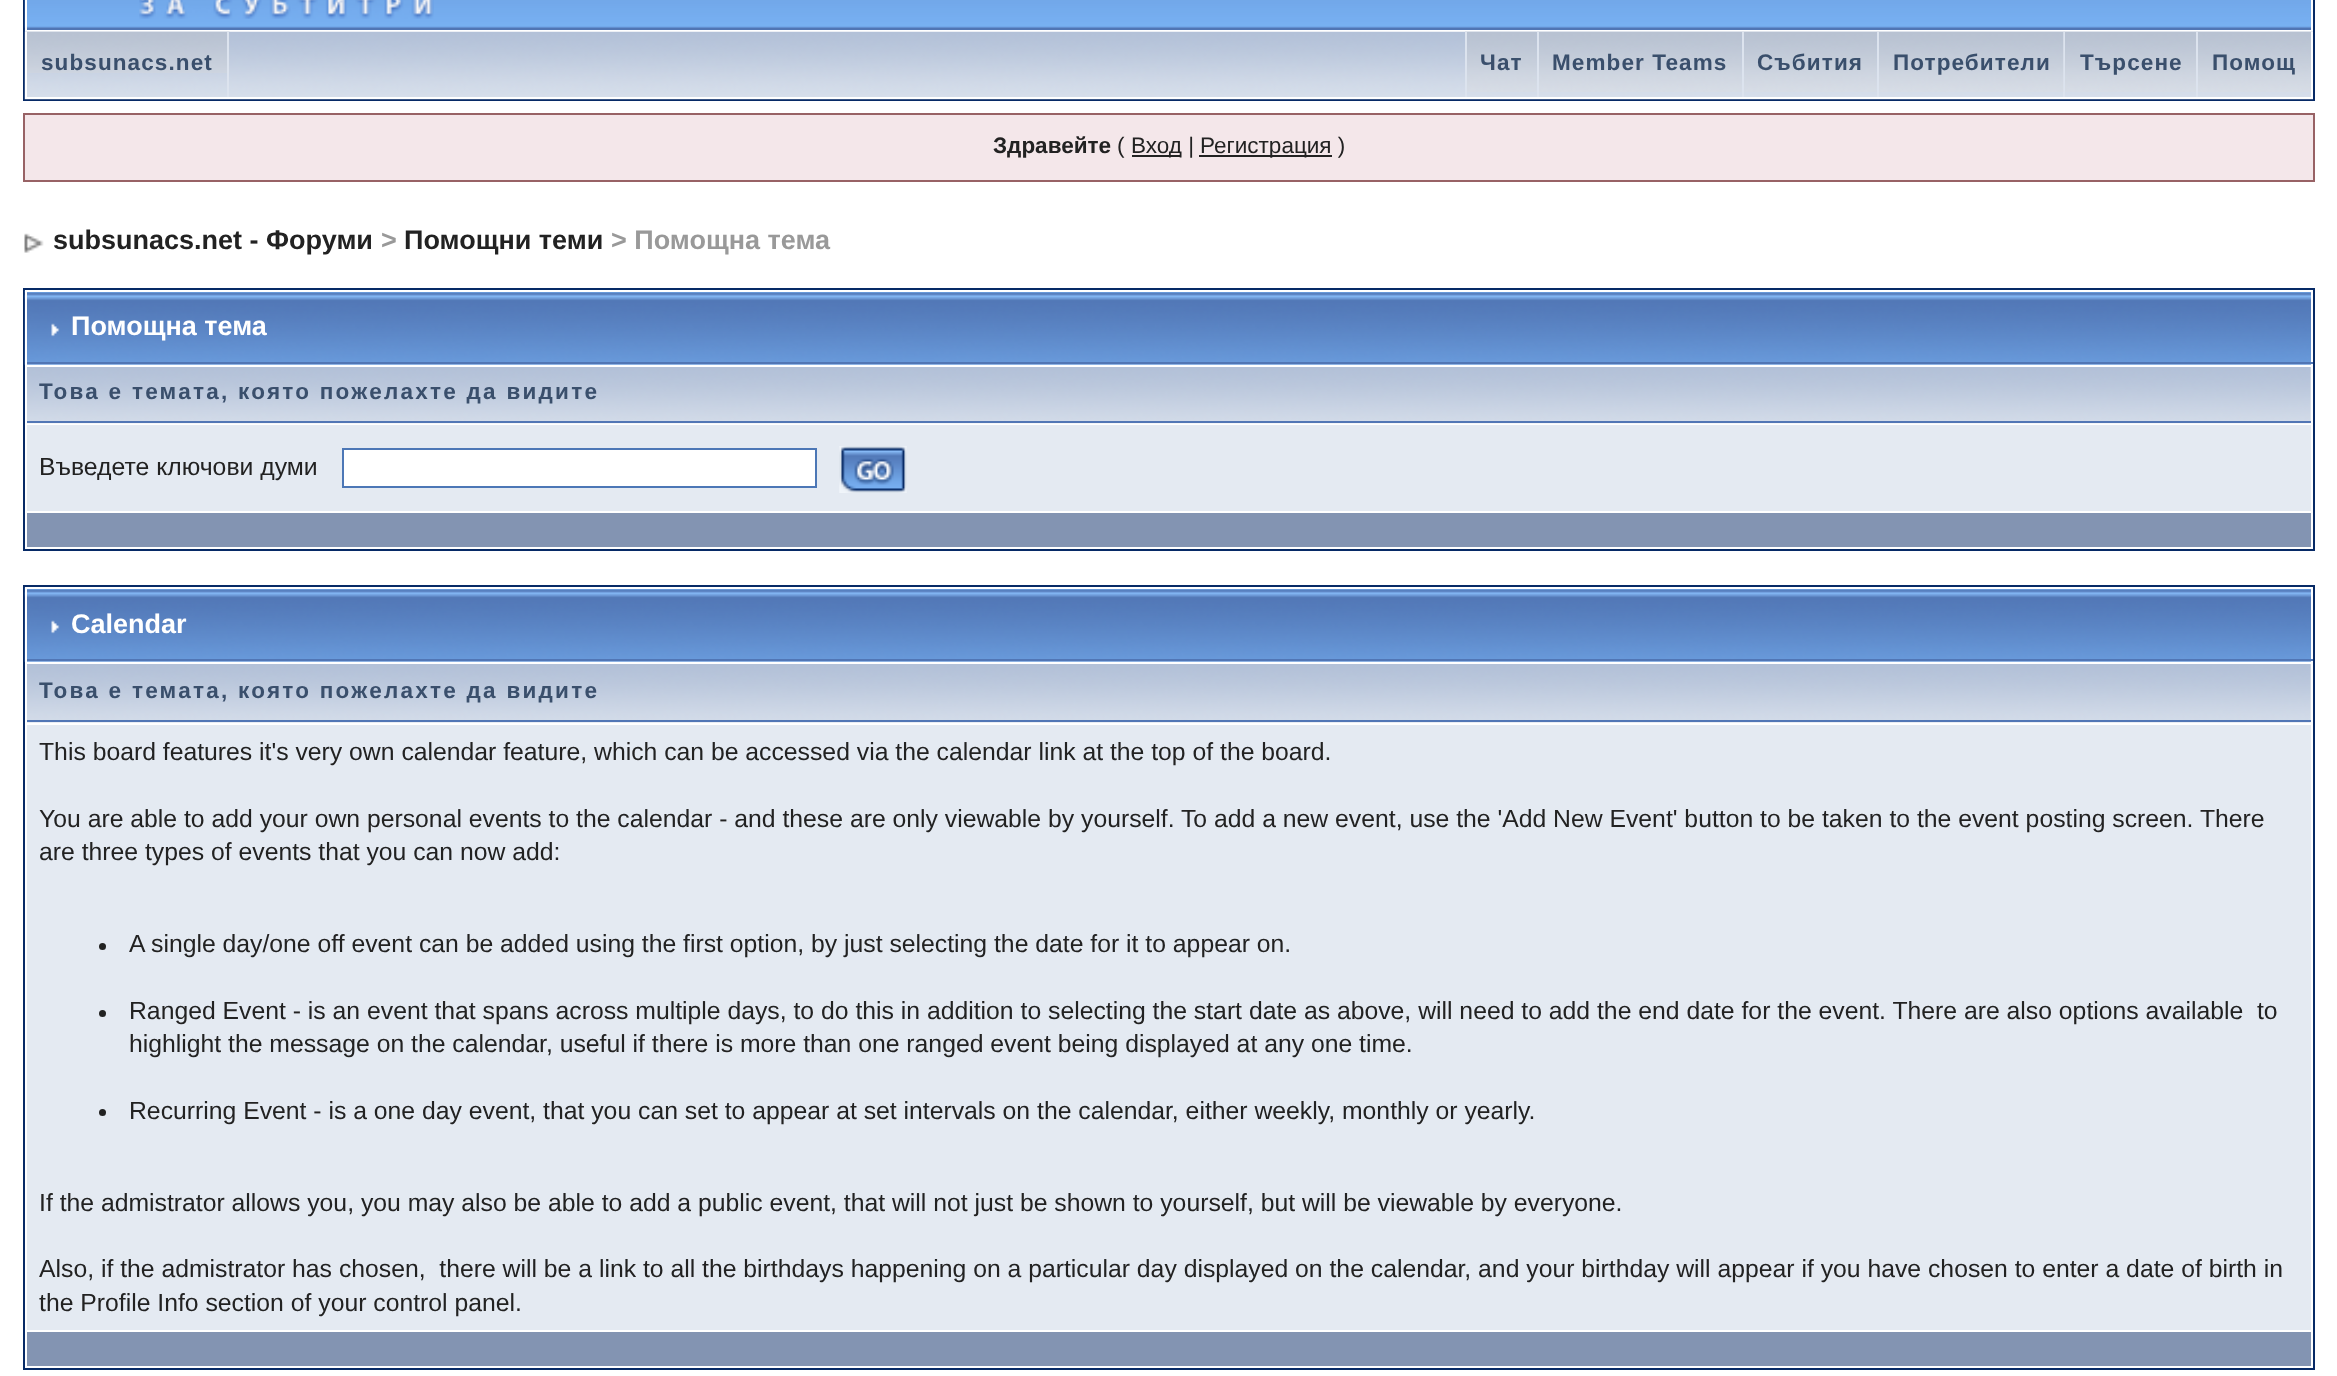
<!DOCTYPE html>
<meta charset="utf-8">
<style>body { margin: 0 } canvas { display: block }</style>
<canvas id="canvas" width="2337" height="1376"></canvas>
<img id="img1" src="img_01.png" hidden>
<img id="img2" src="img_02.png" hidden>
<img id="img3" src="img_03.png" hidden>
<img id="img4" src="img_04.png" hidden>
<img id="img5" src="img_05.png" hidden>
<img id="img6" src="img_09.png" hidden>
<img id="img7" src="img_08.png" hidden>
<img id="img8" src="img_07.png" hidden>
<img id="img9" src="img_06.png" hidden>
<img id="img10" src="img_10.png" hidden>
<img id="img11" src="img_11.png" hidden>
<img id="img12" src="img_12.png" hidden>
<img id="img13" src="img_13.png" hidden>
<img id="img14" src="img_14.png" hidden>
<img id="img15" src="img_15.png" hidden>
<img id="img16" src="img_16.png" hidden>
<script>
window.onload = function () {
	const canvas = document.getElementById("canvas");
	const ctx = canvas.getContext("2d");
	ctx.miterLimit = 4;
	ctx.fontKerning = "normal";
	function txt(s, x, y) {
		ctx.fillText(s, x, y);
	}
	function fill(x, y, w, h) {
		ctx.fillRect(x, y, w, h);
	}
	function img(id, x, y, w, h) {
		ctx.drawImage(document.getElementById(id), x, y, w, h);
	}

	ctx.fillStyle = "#FFFFFF";
	fill(0, 0, 2337, 1376);
	ctx.strokeStyle = "#072A66";
	ctx.lineWidth = 2;
	ctx.strokeRect(24, -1, 2290, 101);
	img("img1", 24, 0, 2287, 32);
	ctx.strokeStyle = "#FFFFFF";
	ctx.strokeRect(26, -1, 2286, 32);
	img("img2", 139, 0, 295, 19);
	img("img3", 24, 31, 2289, 69);
	fill(2311, 32, 2, 67);
	fill(25, 97, 2288, 2);
	fill(25, 32, 2, 67);
	img("img4", 27, 31, 203, 42);
	ctx.fillStyle = "#DCE3EE";
	fill(227, 32, 2, 65);
	img("img5", 1465, 31, 72, 61);
	fill(1465, 32, 2, 65);
	img("img6", 2063, 31, 133, 61);
	fill(2063, 32, 2, 65);
	img("img7", 1876, 31, 188, 61);
	img("img8", 1741, 31, 136, 61);
	img("img9", 1537, 31, 205, 61);
	fill(1537, 32, 2, 65);
	fill(1742, 32, 2, 65);
	fill(1877, 32, 2, 65);
	img("img10", 2196, 31, 115, 61);
	fill(2196, 32, 2, 65);
	ctx.fillStyle = "#F4E7EA";
	ctx.beginPath();
	ctx.rect(24, 114, 2290, 67);
	ctx.fill();
	ctx.strokeStyle = "#986265";
	ctx.stroke();
	ctx.fillStyle = "#222222";
	fill(1132, 155, 49, 2);
	fill(1199, 155, 133, 2);
	img("img11", 24, 233, 20, 20);
	ctx.strokeStyle = "#072A66";
	ctx.strokeRect(24, 289, 2290, 261);
	img("img12", 24, 290, 2287, 75);
	ctx.fillStyle = "#FFFFFF";
	fill(25, 290, 2288, 2);
	ctx.fillStyle = "#5176B5";
	fill(25, 362, 2288, 2);
	ctx.fillStyle = "#FFFFFF";
	fill(25, 290, 2, 75);
	img("img13", 51, 323, 9, 14);
	img("img14", 27, 367, 2284, 57);
	ctx.fillStyle = "#5176B5";
	fill(27, 421, 2284, 2);
	ctx.fillStyle = "#E4EAF2";
	fill(27, 425, 2284, 86);
	ctx.fillStyle = "#FFFFFF";
	ctx.beginPath();
	ctx.rect(343, 449, 473, 38);
	ctx.fill();
	ctx.strokeStyle = "#4C77B6";
	ctx.stroke();
	img("img15", 839, 446, 68, 47);
	ctx.fillStyle = "#8394B2";
	fill(27, 513, 2284, 34);
	ctx.strokeStyle = "#072A66";
	ctx.strokeRect(24, 586, 2290, 783);
	img("img12", 24, 587, 2287, 75);
	ctx.fillStyle = "#FFFFFF";
	fill(25, 587, 2288, 2);
	ctx.fillStyle = "#5176B5";
	fill(25, 659, 2288, 2);
	ctx.fillStyle = "#FFFFFF";
	fill(25, 587, 2, 75);
	img("img13", 51, 620, 9, 14);
	img("img16", 27, 664, 2284, 59);
	ctx.fillStyle = "#5176B5";
	fill(27, 720, 2284, 2);
	ctx.fillStyle = "#E4EAF2";
	fill(27, 725, 2284, 605);
	ctx.fillStyle = "#222222";
	ctx.beginPath();
	ctx.arc(102.5, 946.5, 3.5, 0, Math.PI * 2);
	ctx.fill();
	ctx.beginPath();
	ctx.arc(102.5, 1013.5, 3.5, 0, Math.PI * 2);
	ctx.fill();
	ctx.beginPath();
	ctx.arc(102.5, 1112.5, 3.5, 0, Math.PI * 2);
	ctx.fill();
	ctx.fillStyle = "#8394B2";
	fill(27, 1332, 2284, 34);
	ctx.letterSpacing = "1.1px";
	ctx.font = "bold 22.5px Liberation Sans";
	ctx.fillStyle = "#3A4F6C";
	txt("subsunacs.net", 41, 70);
	txt("Чат", 1480, 70);
	txt("Member Teams", 1552, 70);
	txt("Събития", 1757, 70);
	txt("Потребители", 1893, 70);
	txt("Търсене", 2080, 70);
	txt("Помощ", 2212, 70);
	ctx.letterSpacing = "0px";
	ctx.fillStyle = "#222222";
	txt("Здравейте", 993, 153);
	ctx.font = "22.5px Liberation Sans";
	txt("(", 1117, 153);
	txt("Вход |", 1131, 153);
	txt("Регистрация )", 1200, 153);
	ctx.font = "bold 27px Liberation Sans";
	txt("subsunacs.net - Форуми", 53, 249);
	ctx.fillStyle = "#999999";
	txt(">", 381, 249);
	ctx.fillStyle = "#222222";
	txt("Помощни теми", 404, 249);
	ctx.fillStyle = "#999999";
	txt("> Помощна тема", 611, 249);
	ctx.fillStyle = "#FFFFFF";
	txt("Помощна тема", 71, 335);
	ctx.letterSpacing = "2.25px";
	ctx.font = "bold 22.5px Liberation Sans";
	ctx.fillStyle = "#3A4F6C";
	txt("Това е темата, която пожелахте да видите", 39, 399);
	ctx.letterSpacing = "0px";
	ctx.font = "24.75px Liberation Sans";
	ctx.fillStyle = "#222222";
	txt("Въведете ключови думи", 39, 475);
	ctx.font = "bold 27px Liberation Sans";
	ctx.fillStyle = "#FFFFFF";
	txt("Calendar", 71, 633);
	ctx.letterSpacing = "2.25px";
	ctx.font = "bold 22.5px Liberation Sans";
	ctx.fillStyle = "#3A4F6C";
	txt("Това е темата, която пожелахте да видите", 39, 698);
	ctx.letterSpacing = "0px";
	ctx.font = "24.75px Liberation Sans";
	ctx.fillStyle = "#222222";
	txt("This board features it's very own calendar feature, which can be accessed via the calendar link at the top of the board.", 39, 760);
	txt("You are able to add your own personal events to the calendar - and these are only viewable by yourself. To add a new event, use the 'Add New Event' button to be taken to the event posting screen. There", 39, 827);
	txt("are three types of events that you can now add:", 39, 860);
	txt("A single day/one off event can be added using the first option, by just selecting the date for it to appear on.", 129, 952);
	txt("Ranged Event - is an event that spans across multiple days, to do this in addition to selecting the start date as above, will need to add the end date for the event. There are also options available  to", 129, 1019);
	txt("highlight the message on the calendar, useful if there is more than one ranged event being displayed at any one time.", 129, 1052);
	txt("Recurring Event - is a one day event, that you can set to appear at set intervals on the calendar, either weekly, monthly or yearly.", 129, 1119);
	txt("If the admistrator allows you, you may also be able to add a public event, that will not just be shown to yourself, but will be viewable by everyone.", 39, 1211);
	txt("Also, if the admistrator has chosen,  there will be a link to all the birthdays happening on a particular day displayed on the calendar, and your birthday will appear if you have chosen to enter a date of birth in", 39, 1277);
	txt("the Profile Info section of your control panel.", 39, 1311);
};
</script>
